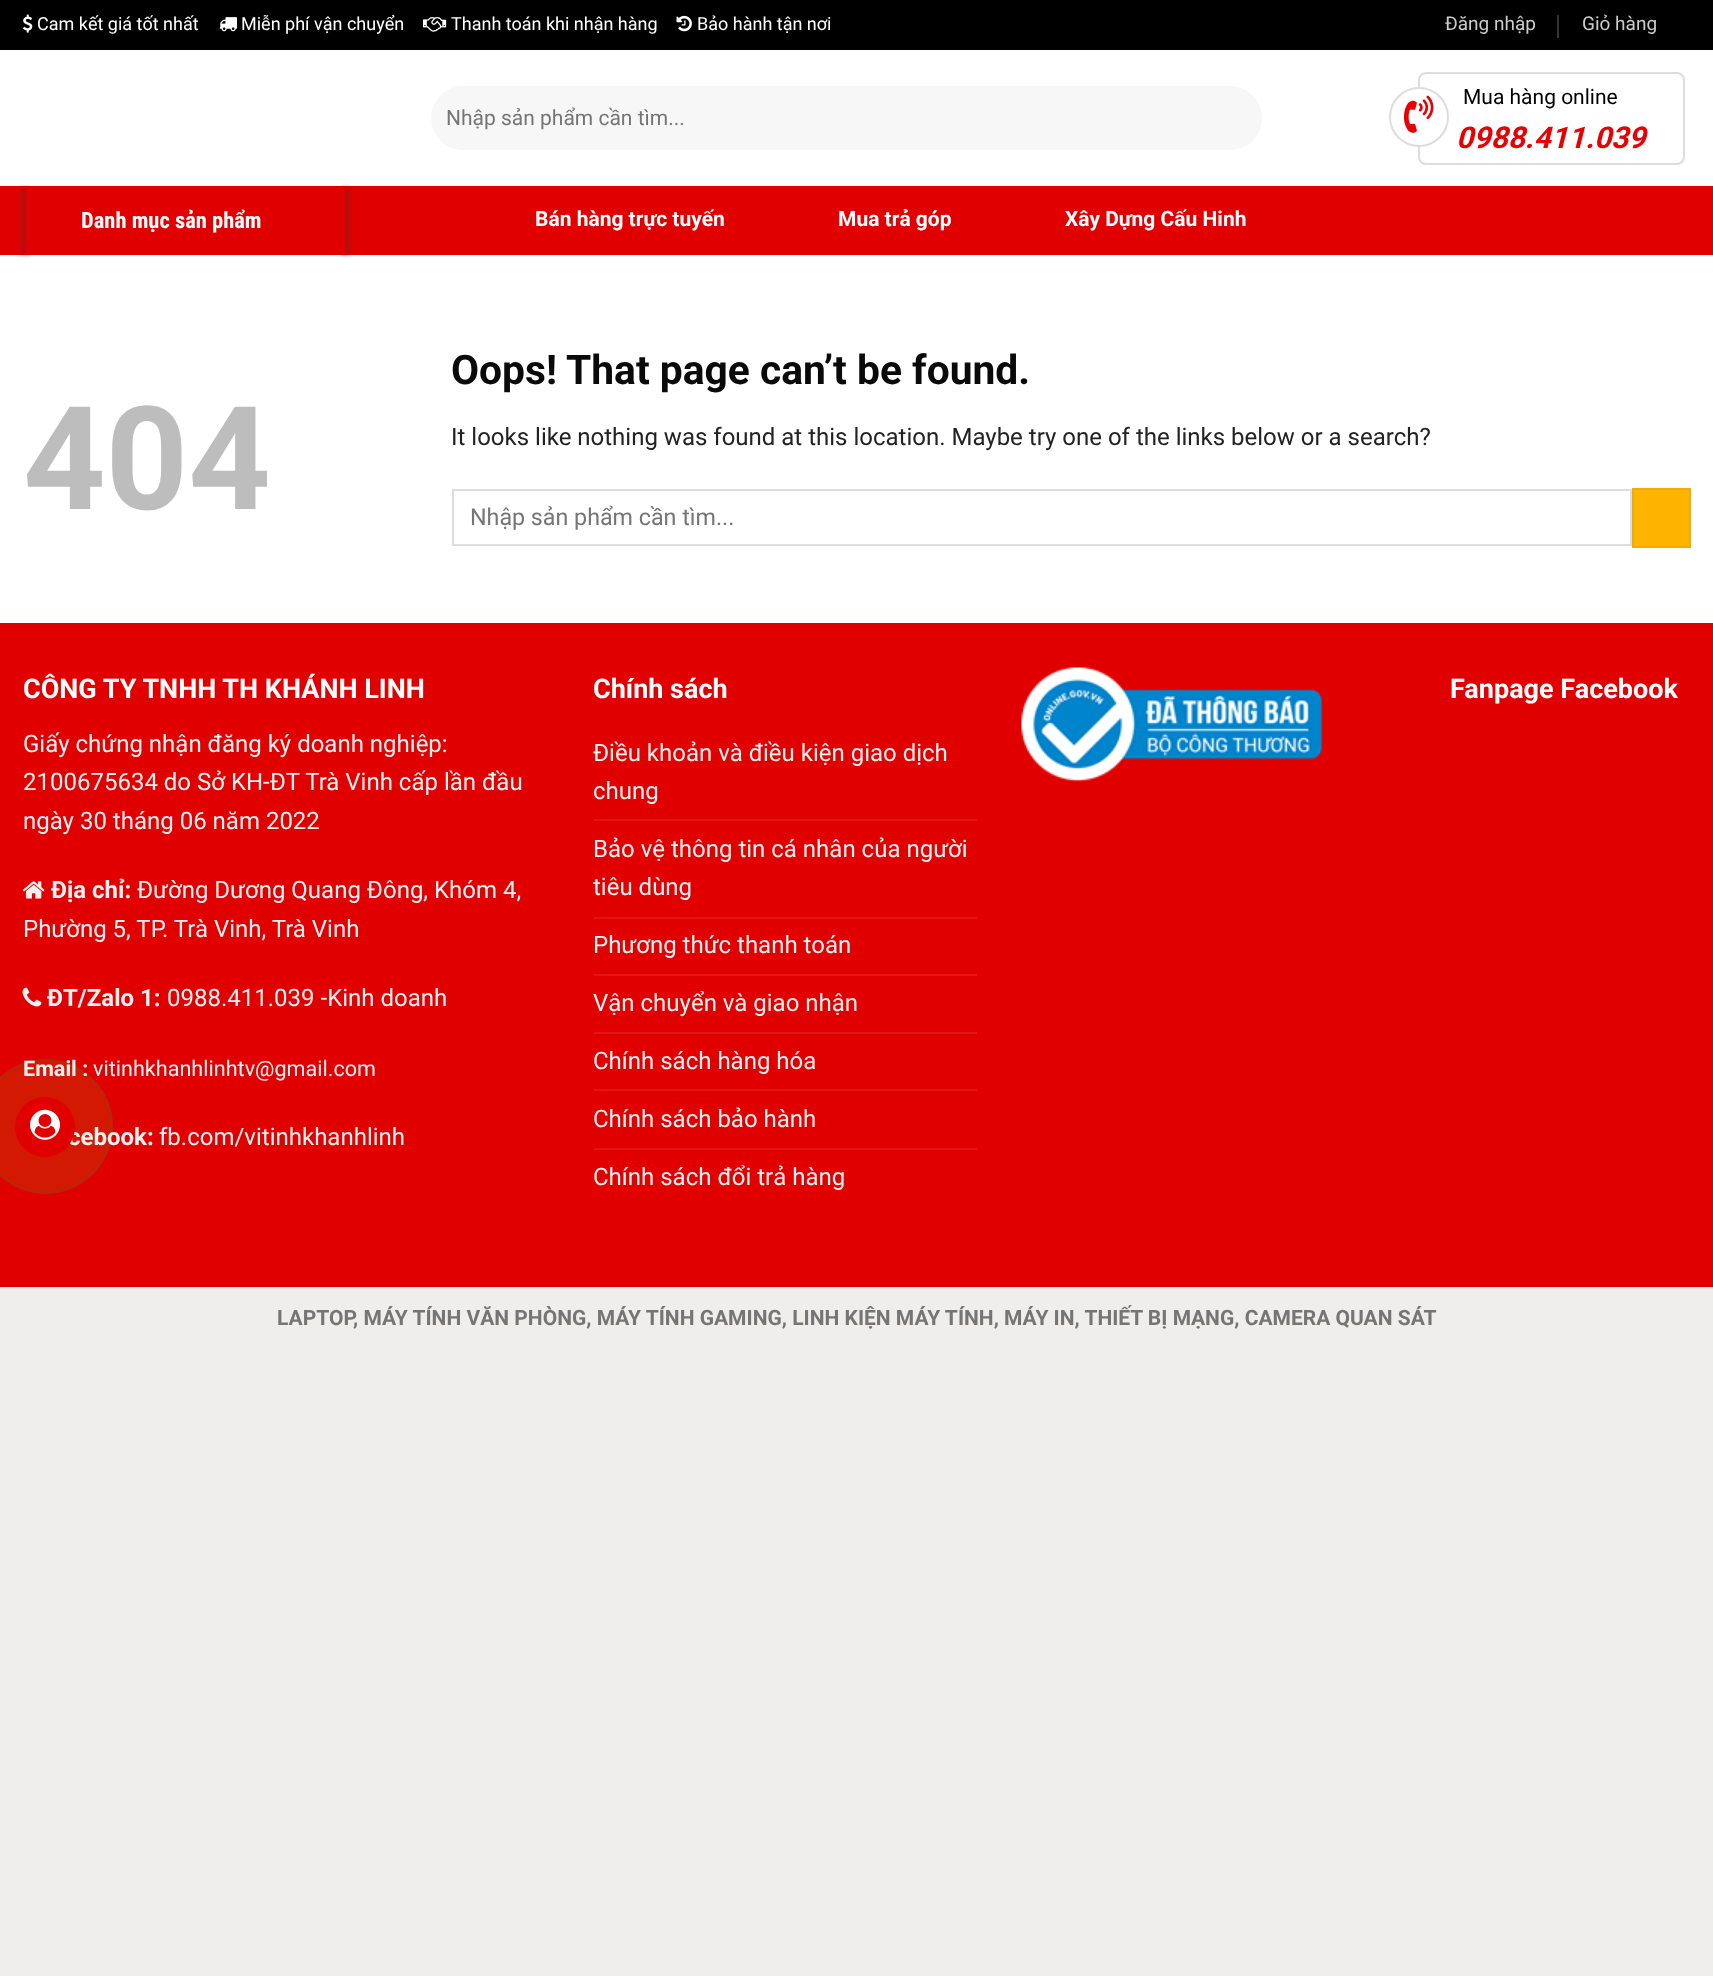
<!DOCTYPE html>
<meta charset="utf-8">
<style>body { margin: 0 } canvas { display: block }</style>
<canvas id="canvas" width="1713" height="1976"></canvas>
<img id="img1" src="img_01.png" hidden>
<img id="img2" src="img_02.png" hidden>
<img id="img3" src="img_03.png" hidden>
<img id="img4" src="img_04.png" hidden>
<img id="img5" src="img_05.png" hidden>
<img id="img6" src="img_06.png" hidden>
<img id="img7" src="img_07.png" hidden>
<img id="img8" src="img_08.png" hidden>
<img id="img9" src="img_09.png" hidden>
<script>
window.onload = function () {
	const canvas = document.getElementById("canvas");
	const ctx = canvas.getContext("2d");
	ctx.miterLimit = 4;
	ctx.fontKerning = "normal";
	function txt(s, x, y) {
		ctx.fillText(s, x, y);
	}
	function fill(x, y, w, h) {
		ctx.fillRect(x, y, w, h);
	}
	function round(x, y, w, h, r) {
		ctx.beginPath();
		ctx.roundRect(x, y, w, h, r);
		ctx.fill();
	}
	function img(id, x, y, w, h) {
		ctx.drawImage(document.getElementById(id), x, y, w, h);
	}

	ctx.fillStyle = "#F0EDED";
	fill(0, 0, 1713, 1976);
	ctx.fillStyle = "#FFFFFF";
	fill(0, 50, 1713, 573);
	ctx.fillStyle = "#000000";
	fill(0, 0, 1713, 50);
	img("img1", 23, 14, 10, 19);
	img("img2", 219, 17, 18, 15);
	img("img3", 423, 17, 24, 15);
	img("img4", 676, 15, 16, 17);
	ctx.fillStyle = "#333333";
	fill(1557, 15, 2, 23);
	ctx.fillStyle = "#F7F7F7";
	round(431, 86, 831, 64, 32);
	ctx.beginPath();
	ctx.roundRect(1419, 73, 265, 91, 7);
	ctx.strokeStyle = "#DDDDDD";
	ctx.lineWidth = 2;
	ctx.stroke();
	ctx.fillStyle = "#FFFFFF";
	ctx.beginPath();
	ctx.arc(1419, 117, 29, 0, Math.PI * 2);
	ctx.fill();
	ctx.stroke();
	img("img5", 1404, 95, 30, 38);
	ctx.fillStyle = "#E10000";
	fill(0, 186, 1713, 69);
	ctx.save();
	ctx.beginPath();
	ctx.moveTo(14, 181);
	ctx.lineTo(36, 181);
	ctx.lineTo(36, 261);
	ctx.lineTo(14, 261);
	ctx.closePath();
	ctx.moveTo(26, 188);
	ctx.lineTo(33, 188);
	ctx.lineTo(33, 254);
	ctx.lineTo(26, 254);
	ctx.closePath();
	ctx.clip("evenodd");
	ctx.fillStyle = "#B30E10";
	ctx.filter = "blur(2px)";
	ctx.beginPath();
	ctx.rect(21, 188, 8, 66);
	ctx.fill();
	ctx.filter = "none";
	ctx.restore();
	ctx.save();
	ctx.beginPath();
	ctx.moveTo(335, 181);
	ctx.lineTo(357, 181);
	ctx.lineTo(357, 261);
	ctx.lineTo(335, 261);
	ctx.closePath();
	ctx.moveTo(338, 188);
	ctx.lineTo(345, 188);
	ctx.lineTo(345, 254);
	ctx.lineTo(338, 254);
	ctx.closePath();
	ctx.clip("evenodd");
	ctx.fillStyle = "#B30E10";
	ctx.filter = "blur(2px)";
	ctx.beginPath();
	ctx.rect(342, 188, 8, 66);
	ctx.fill();
	ctx.filter = "none";
	ctx.restore();
	ctx.strokeRect(453, 490, 1178, 55);
	ctx.fillStyle = "#FFB400";
	ctx.beginPath();
	ctx.rect(1633, 489, 57, 58);
	ctx.fill();
	ctx.strokeStyle = "#F2AB00";
	ctx.stroke();
	ctx.fillStyle = "#E10000";
	fill(0, 623, 1713, 664);
	img("img6", 22, 881, 23, 18);
	img("img7", 22, 987, 20, 20);
	ctx.fillStyle = "#E31414";
	fill(594, 819, 383, 2);
	fill(594, 917, 383, 2);
	fill(594, 974, 383, 2);
	fill(594, 1032, 383, 2);
	fill(594, 1089, 383, 2);
	fill(594, 1148, 383, 2);
	img("img8", 1021, 667, 301, 115);
	ctx.fillStyle = "rgba(90, 249, 18, 0.1)";
	ctx.beginPath();
	ctx.arc(45.5, 1126.5, 67.5, 0, Math.PI * 2);
	ctx.fill();
	ctx.beginPath();
	ctx.arc(45.5, 1126.5, 66, 0, Math.PI * 2);
	ctx.strokeStyle = "rgba(0, 147, 67, 0.1)";
	ctx.lineWidth = 3;
	ctx.stroke();
	ctx.font = "18px Roboto";
	ctx.fillStyle = "#FFFFFF";
	txt("Cam kết giá tốt nhất", 37, 30);
	txt("Miễn phí vận chuyển", 241, 30);
	txt("Thanh toán khi nhận hàng", 451, 30);
	txt("Bảo hành tận nơi", 697, 30);
	ctx.font = "19px Roboto";
	ctx.fillStyle = "#CCCCCC";
	txt("Đăng nhập", 1445, 30);
	txt("Giỏ hàng", 1582, 30);
	ctx.font = "21px Roboto";
	ctx.fillStyle = "#757575";
	txt("Nhập sản phẩm cần tìm...", 446, 125);
	ctx.fillStyle = "#000000";
	txt("Mua hàng online", 1463, 104);
	ctx.font = "italic bold 30px Roboto";
	ctx.fillStyle = "#E80104";
	txt("0988.411.039", 1456, 148);
	ctx.font = "bold 22.5px Roboto Condensed";
	ctx.fillStyle = "#FFFFFF";
	txt("Danh mục sản phẩm", 81, 228);
	ctx.font = "bold 21px Roboto";
	txt("Bán hàng trực tuyến", 535, 226);
	txt("Mua trả góp", 838, 226);
	txt("Xây Dựng Cấu Hinh", 1065, 226);
	ctx.font = "bold 144px Roboto";
	ctx.fillStyle = "#BDBDBD";
	txt("404", 23, 509);
	ctx.font = "bold 40.75px Roboto";
	ctx.fillStyle = "#0A0A0A";
	txt("Oops! That page can’t be found.", 451, 384);
	ctx.font = "24px Roboto";
	ctx.fillStyle = "#232323";
	txt("It looks like nothing was found at this location. Maybe try one of the links below or a search?", 451, 445);
	ctx.font = "23.25px Roboto";
	ctx.fillStyle = "#757575";
	txt("Nhập sản phẩm cần tìm...", 470, 525);
	ctx.font = "bold 27px Roboto";
	ctx.fillStyle = "#FFFFFF";
	txt("CÔNG TY TNHH TH KHÁNH LINH", 23, 698);
	ctx.font = "24px Roboto";
	ctx.fillStyle = "#F1F1F1";
	txt("Giấy chứng nhận đăng ký doanh nghiệp:", 23, 752);
	txt("2100675634 do Sở KH-ĐT Trà Vinh cấp lần đầu", 23, 790);
	txt("ngày 30 tháng 06 năm 2022", 23, 829);
	ctx.font = "bold 24px Roboto";
	txt("Địa chỉ:", 51, 898);
	ctx.font = "24px Roboto";
	txt("Đường Dương Quang Đông, Khóm 4,", 137, 898);
	txt("Phường 5, TP. Trà Vinh, Trà Vinh", 23, 937);
	ctx.font = "bold 24px Roboto";
	txt("ĐT/Zalo 1:", 47, 1006);
	ctx.font = "24px Roboto";
	txt("0988.411.039 -Kinh doanh", 167, 1006);
	ctx.font = "bold 21.6px Roboto";
	txt("Email :", 23, 1076);
	ctx.font = "21.6px Roboto";
	txt("vitinhkhanhlinhtv@gmail.com", 93, 1076);
	ctx.font = "bold 24px Roboto";
	txt("cebook:", 68, 1145);
	ctx.font = "24px Roboto";
	txt("fb.com/vitinhkhanhlinh", 159, 1145);
	ctx.font = "bold 27px Roboto";
	ctx.fillStyle = "#FFFFFF";
	txt("Chính sách", 593, 698);
	ctx.font = "24px Roboto";
	ctx.fillStyle = "#F1F1F1";
	txt("Điều khoản và điều kiện giao dịch", 593, 761);
	txt("chung", 593, 799);
	txt("Bảo vệ thông tin cá nhân của người", 593, 857);
	txt("tiêu dùng", 593, 895);
	txt("Phương thức thanh toán", 593, 953);
	txt("Vận chuyển và giao nhận", 593, 1011);
	txt("Chính sách hàng hóa", 593, 1069);
	txt("Chính sách bảo hành", 593, 1127);
	txt("Chính sách đổi trả hàng", 593, 1185);
	ctx.font = "bold 27px Roboto";
	ctx.fillStyle = "#FFFFFF";
	txt("Fanpage Facebook", 1450, 698);
	ctx.font = "bold 21px Roboto";
	ctx.fillStyle = "#757575";
	txt("LAPTOP, MÁY TÍNH VĂN PHÒNG, MÁY TÍNH GAMING, LINH KIỆN MÁY TÍNH, MÁY IN, THIẾT BỊ MẠNG, CAMERA QUAN SÁT", 277, 1325);
	ctx.fillStyle = "#E10000";
	ctx.beginPath();
	ctx.arc(45, 1127, 30, 0, Math.PI * 2);
	ctx.fill();
	img("img9", 30, 1109, 30, 31);
};
</script>
